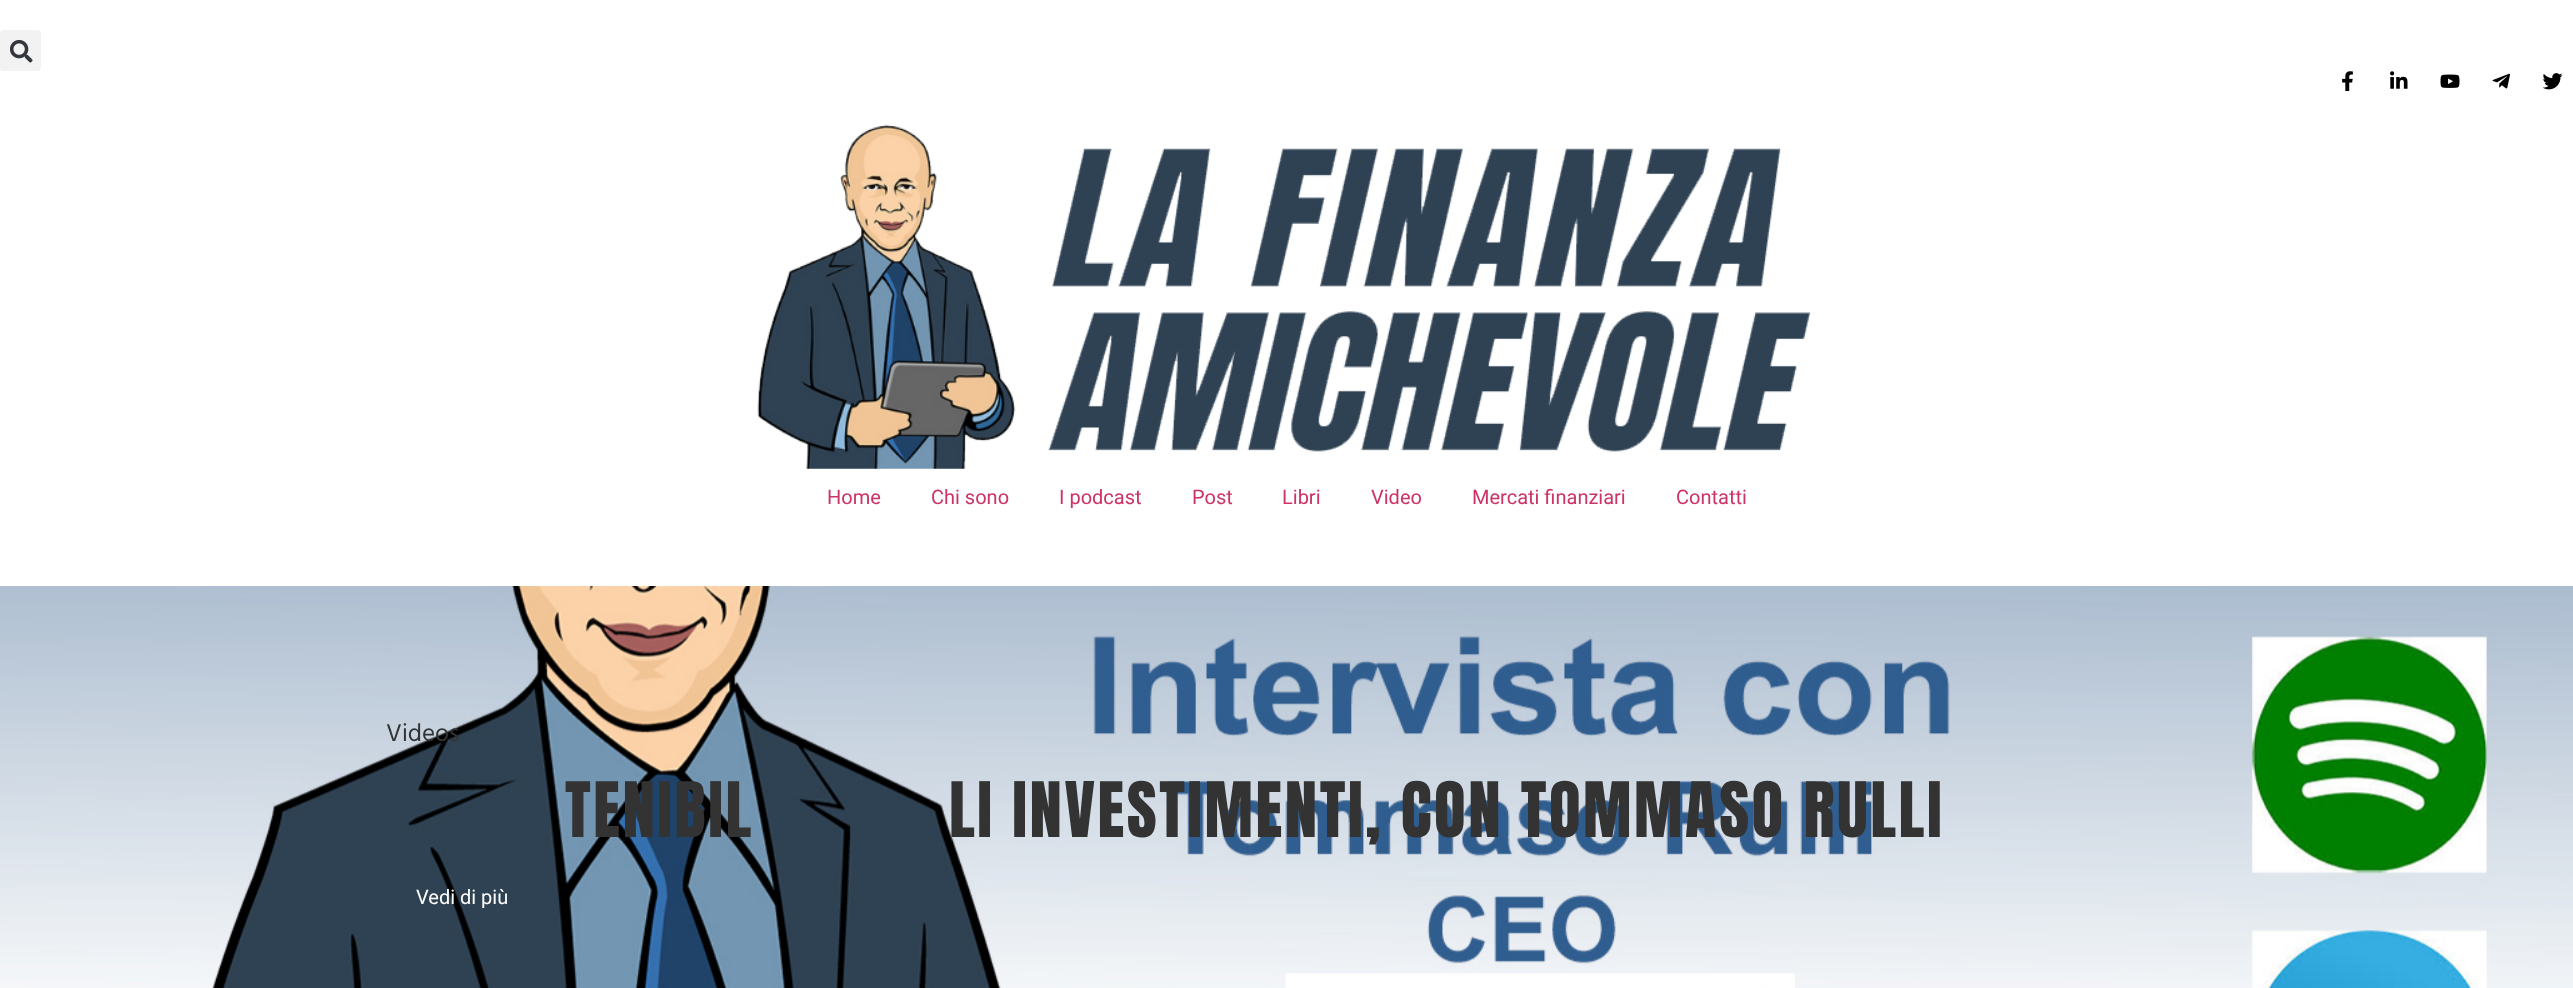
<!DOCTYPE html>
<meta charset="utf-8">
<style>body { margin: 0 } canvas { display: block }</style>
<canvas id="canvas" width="2573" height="988"></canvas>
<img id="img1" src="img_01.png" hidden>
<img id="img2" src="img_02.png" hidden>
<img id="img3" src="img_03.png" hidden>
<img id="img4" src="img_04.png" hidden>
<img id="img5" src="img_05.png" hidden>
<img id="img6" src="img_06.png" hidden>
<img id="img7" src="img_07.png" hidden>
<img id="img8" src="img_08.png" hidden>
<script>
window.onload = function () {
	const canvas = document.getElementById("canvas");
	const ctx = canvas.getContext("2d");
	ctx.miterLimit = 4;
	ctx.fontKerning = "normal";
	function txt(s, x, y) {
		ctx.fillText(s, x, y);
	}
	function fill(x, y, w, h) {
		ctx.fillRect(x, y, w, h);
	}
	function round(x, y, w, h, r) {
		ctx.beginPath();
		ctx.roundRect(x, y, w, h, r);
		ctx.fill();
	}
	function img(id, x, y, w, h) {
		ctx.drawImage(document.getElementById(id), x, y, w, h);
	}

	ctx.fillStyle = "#FFFFFF";
	fill(0, 0, 2573, 988);
	ctx.fillStyle = "#F2F2F2";
	round(0, 30, 41, 41, 4);
	img("img1", 10, 40, 23, 23);
	img("img2", 2342, 71, 11, 20);
	img("img3", 2390, 71, 18, 18);
	img("img4", 2440, 74, 20, 14);
	img("img5", 2492, 73, 18, 16);
	img("img6", 2543, 73, 20, 17);
	img("img7", 757, 124, 1054, 345);
	img("img8", 0, 586, 2573, 402);
	ctx.font = "20px Roboto";
	ctx.fillStyle = "#CC3366";
	txt("Home", 827, 504);
	txt("Chi sono", 931, 504);
	txt("I podcast", 1059, 504);
	txt("Post", 1192, 504);
	txt("Libri", 1282, 504);
	txt("Video", 1371, 504);
	txt("Mercati finanziari", 1472, 504);
	txt("Contatti", 1676, 504);
	ctx.font = "25px Hind Siliguri";
	ctx.fillStyle = "#333333";
	txt("Videos", 386, 741);
	ctx.letterSpacing = "2.5px";
	ctx.font = "65px Anton";
	txt("TENIBIL", 565, 837);
	txt("LI INVESTIMENTI, CON TOMMASO RULLI", 949, 837);
	ctx.letterSpacing = "0px";
	ctx.font = "20px Roboto";
	ctx.fillStyle = "#FFFFFF";
	txt("Vedi di più", 416, 904);
};
</script>
